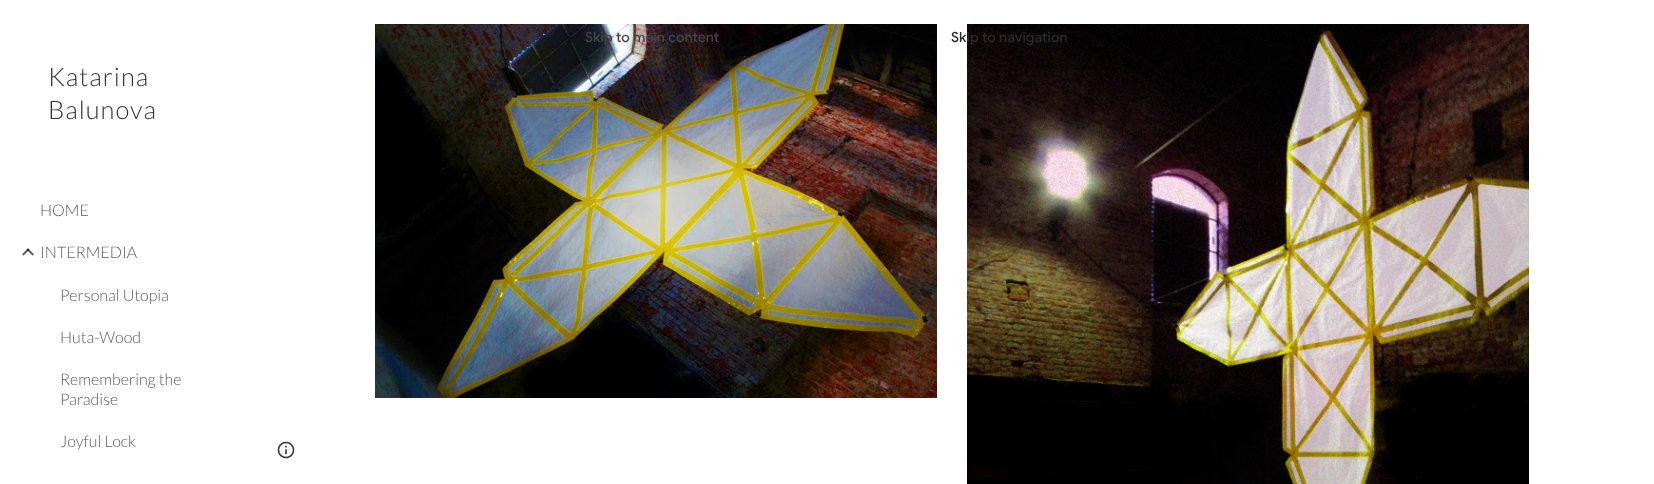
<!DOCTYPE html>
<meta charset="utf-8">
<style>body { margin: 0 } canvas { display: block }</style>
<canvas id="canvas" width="1654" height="484"></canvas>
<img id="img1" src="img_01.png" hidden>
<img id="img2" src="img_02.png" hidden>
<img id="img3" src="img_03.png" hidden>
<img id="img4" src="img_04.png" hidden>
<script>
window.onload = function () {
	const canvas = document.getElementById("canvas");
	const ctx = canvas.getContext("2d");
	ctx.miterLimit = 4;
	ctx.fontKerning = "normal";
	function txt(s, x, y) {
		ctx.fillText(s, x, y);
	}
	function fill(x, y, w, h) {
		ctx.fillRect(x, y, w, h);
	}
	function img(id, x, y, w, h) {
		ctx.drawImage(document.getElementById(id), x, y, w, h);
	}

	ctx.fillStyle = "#FFFFFF";
	fill(0, 0, 1654, 484);
	img("img1", 22, 248, 12, 8);
	img("img2", 277, 441, 18, 18);
	img("img3", 375, 24, 562, 374);
	img("img4", 967, 24, 562, 460);
	ctx.letterSpacing = "0.1px";
	ctx.font = "500 14px Google Sans";
	ctx.fillStyle = "#484348";
	txt("Skip to main content", 585, 42);
	ctx.fillStyle = "#2E292A";
	txt("Skip to navigation", 951, 42);
	ctx.letterSpacing = "1px";
	ctx.font = "300 25.5px Lato";
	ctx.fillStyle = "#333333";
	txt("Katarina", 48, 86);
	txt("Balunova", 48, 119);
	ctx.letterSpacing = "0px";
	ctx.font = "300 16px Lato";
	ctx.fillStyle = "#5C5C5C";
	txt("HOME", 40, 216);
	txt("INTERMEDIA", 40, 258);
	txt("Personal Utopia", 60, 301);
	txt("Huta-Wood", 60, 343);
	txt("Remembering the", 60, 385);
	txt("Paradise", 60, 405);
	txt("Joyful Lock", 60, 447);
};
</script>
